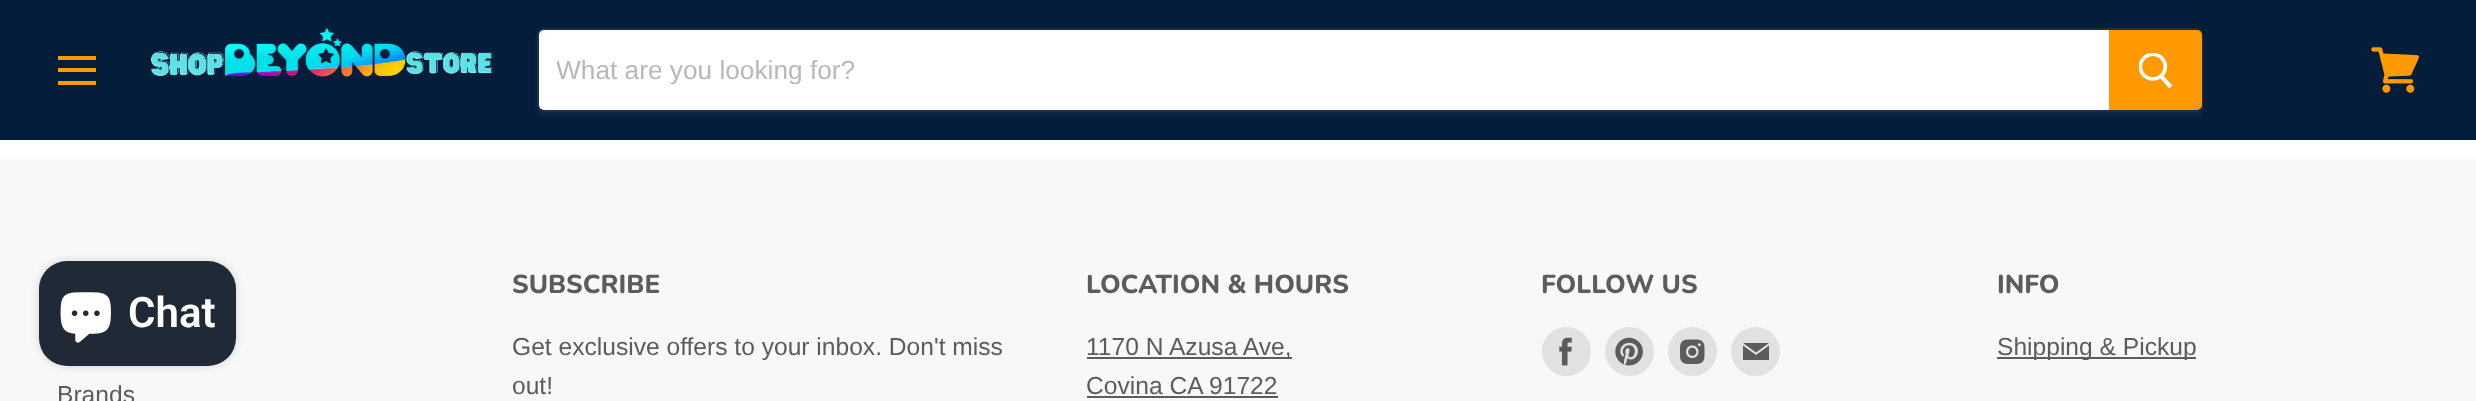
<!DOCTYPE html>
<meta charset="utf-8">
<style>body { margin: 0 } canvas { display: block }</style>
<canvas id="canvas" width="2476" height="401"></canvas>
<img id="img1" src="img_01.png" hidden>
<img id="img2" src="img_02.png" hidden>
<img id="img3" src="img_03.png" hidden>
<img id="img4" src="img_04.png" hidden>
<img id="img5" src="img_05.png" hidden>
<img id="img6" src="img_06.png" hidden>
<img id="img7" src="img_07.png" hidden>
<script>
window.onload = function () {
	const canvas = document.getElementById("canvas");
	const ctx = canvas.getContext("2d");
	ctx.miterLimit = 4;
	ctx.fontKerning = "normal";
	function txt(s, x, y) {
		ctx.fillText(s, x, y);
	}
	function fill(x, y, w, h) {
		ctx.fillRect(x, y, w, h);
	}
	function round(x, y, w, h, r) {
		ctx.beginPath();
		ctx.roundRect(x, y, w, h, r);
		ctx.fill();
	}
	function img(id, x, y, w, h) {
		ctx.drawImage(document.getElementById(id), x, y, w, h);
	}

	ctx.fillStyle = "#FFFFFF";
	fill(0, 0, 2476, 401);
	ctx.fillStyle = "#031D3B";
	fill(0, 0, 2476, 140);
	ctx.fillStyle = "#FF9900";
	fill(58, 56, 38, 4);
	fill(58, 68, 38, 4);
	fill(58, 81, 38, 4);
	img("img1", 150, 28, 343, 49);
	ctx.save();
	ctx.beginPath();
	ctx.moveTo(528, 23);
	ctx.lineTo(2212, 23);
	ctx.lineTo(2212, 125);
	ctx.lineTo(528, 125);
	ctx.closePath();
	ctx.moveTo(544, 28);
	ctx.lineTo(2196, 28);
	ctx.bezierCurveTo(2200, 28, 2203, 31, 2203, 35);
	ctx.lineTo(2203, 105);
	ctx.bezierCurveTo(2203, 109, 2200, 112, 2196, 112);
	ctx.lineTo(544, 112);
	ctx.bezierCurveTo(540, 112, 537, 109, 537, 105);
	ctx.lineTo(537, 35);
	ctx.bezierCurveTo(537, 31, 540, 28, 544, 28);
	ctx.closePath();
	ctx.clip("evenodd");
	ctx.fillStyle = "rgba(127, 127, 127, 0.11)";
	ctx.filter = "blur(2.5px)";
	ctx.beginPath();
	ctx.roundRect(537, 32, 1666, 84, 7);
	ctx.fill();
	ctx.filter = "none";
	ctx.restore();
	ctx.beginPath();
	ctx.roundRect(538, 29, 1664, 82, 6);
	ctx.strokeStyle = "rgba(127, 127, 127, 0.2)";
	ctx.lineWidth = 2;
	ctx.stroke();
	ctx.fillStyle = "#FFFFFF";
	ctx.beginPath();
	ctx.roundRect(539, 30, 1570, 80, [5, 0, 0, 5]);
	ctx.fill();
	ctx.fillStyle = "#FF9900";
	ctx.beginPath();
	ctx.roundRect(2110, 31, 91, 78, [0, 4, 4, 0]);
	ctx.fill();
	ctx.strokeStyle = "#FF9900";
	ctx.stroke();
	img("img2", 2139, 53, 34, 36);
	img("img3", 2371, 47, 48, 46);
	ctx.fillStyle = "#F8F8F8";
	fill(0, 159, 2476, 242);
	ctx.fillStyle = "#5C5C5C";
	fill(1087, 357, 205, 2);
	fill(1087, 396, 191, 2);
	ctx.fillStyle = "#E1E1E1";
	ctx.beginPath();
	ctx.arc(1566.5, 351.5, 24.5, 0, Math.PI * 2);
	ctx.fill();
	img("img4", 1559, 337, 13, 29);
	ctx.beginPath();
	ctx.arc(1629.5, 351.5, 24.5, 0, Math.PI * 2);
	ctx.fill();
	img("img5", 1615, 337, 28, 29);
	ctx.beginPath();
	ctx.arc(1692.5, 351.5, 24.5, 0, Math.PI * 2);
	ctx.fill();
	img("img6", 1680, 339, 25, 25);
	ctx.beginPath();
	ctx.arc(1755.5, 351.5, 24.5, 0, Math.PI * 2);
	ctx.fill();
	ctx.fillStyle = "#5C5C5C";
	ctx.beginPath();
	ctx.moveTo(1769, 343);
	ctx.lineTo(1743, 343);
	ctx.lineTo(1756, 352.5);
	ctx.closePath();
	ctx.moveTo(1756, 355);
	ctx.lineTo(1743, 345.5);
	ctx.lineTo(1743, 360);
	ctx.lineTo(1769, 360);
	ctx.lineTo(1769, 345.5);
	ctx.closePath();
	ctx.fill("evenodd");
	fill(1997, 357, 199, 2);
	ctx.fillStyle = "rgba(0, 0, 0, 0.15)";
	ctx.filter = "blur(4.5px)";
	ctx.beginPath();
	ctx.roundRect(39, 261, 197, 105, 28);
	ctx.fill();
	ctx.filter = "none";
	ctx.fillStyle = "#202A36";
	round(39, 261, 197, 105, 28);
	img("img7", 60, 292, 51, 51);
	ctx.save();
	ctx.beginPath();
	ctx.rect(557, 54, 1534, 30);
	ctx.clip();
	ctx.font = "26.25px Liberation Sans";
	ctx.fillStyle = "#B8B8B8";
	txt("What are you looking for?", 556, 79);
	ctx.restore();
	ctx.font = "800 26px Nunito";
	ctx.fillStyle = "#5C5C5C";
	txt("SUBSCRIBE", 512, 293);
	ctx.font = "24.6px Liberation Sans";
	txt("Get exclusive offers to your inbox. Don't miss", 512, 355);
	txt("out!", 512, 394);
	ctx.font = "800 26px Nunito";
	txt("LOCATION & HOURS", 1086, 293);
	ctx.font = "24.6px Liberation Sans";
	txt("1170 N Azusa Ave,", 1086, 355);
	txt("Covina CA 91722", 1086, 394);
	ctx.font = "800 26px Nunito";
	txt("FOLLOW US", 1541, 293);
	txt("INFO", 1997, 293);
	ctx.font = "24.6px Liberation Sans";
	txt("Shipping & Pickup", 1997, 355);
	txt("Brands", 57, 403);
	ctx.font = "600 42px Roboto";
	ctx.fillStyle = "#FFFFFF";
	txt("Chat", 128, 327);
};
</script>
